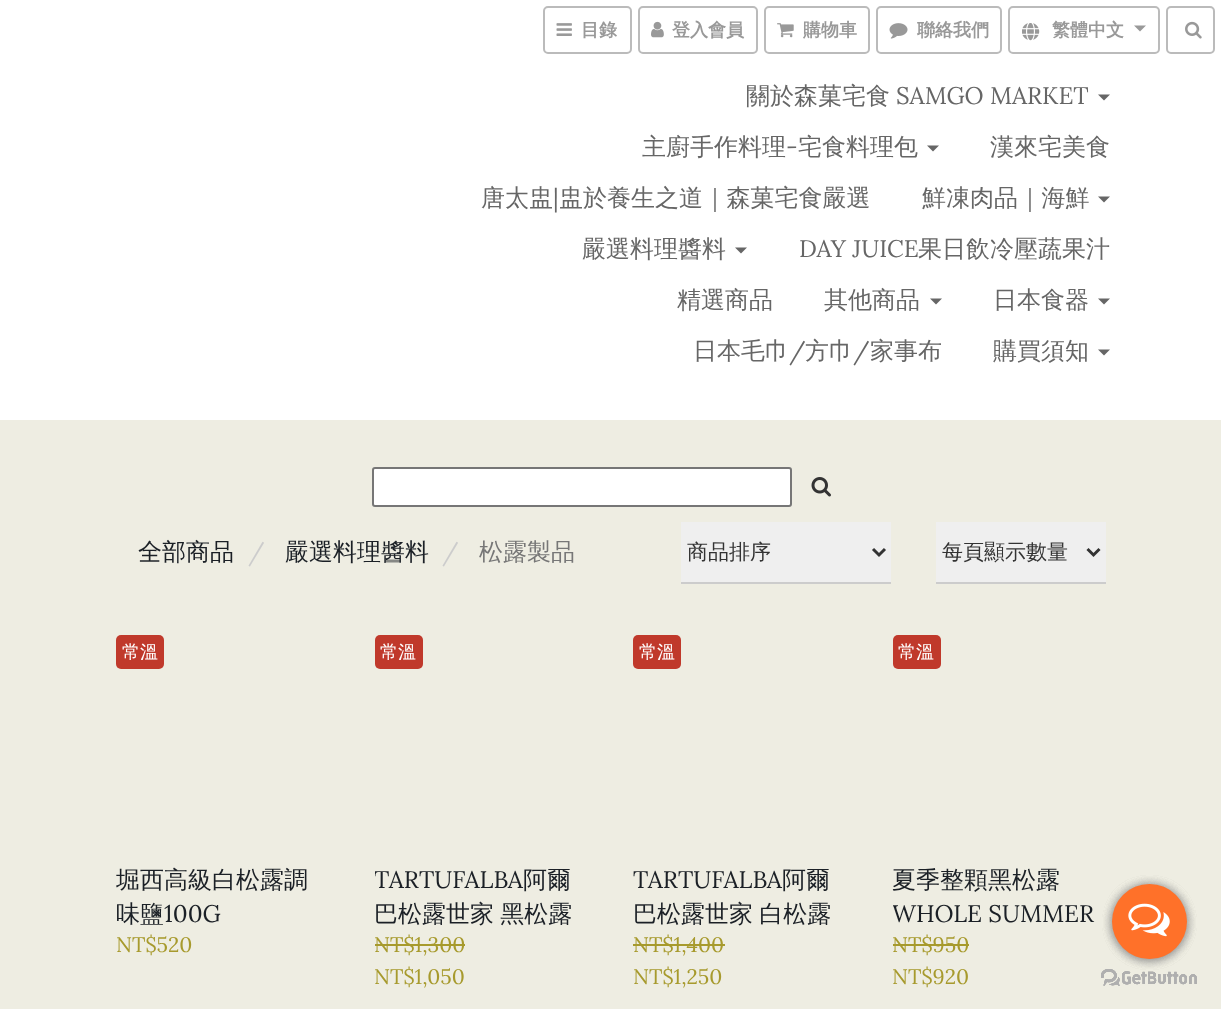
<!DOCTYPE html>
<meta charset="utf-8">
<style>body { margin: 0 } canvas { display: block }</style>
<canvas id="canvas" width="1221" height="1009"></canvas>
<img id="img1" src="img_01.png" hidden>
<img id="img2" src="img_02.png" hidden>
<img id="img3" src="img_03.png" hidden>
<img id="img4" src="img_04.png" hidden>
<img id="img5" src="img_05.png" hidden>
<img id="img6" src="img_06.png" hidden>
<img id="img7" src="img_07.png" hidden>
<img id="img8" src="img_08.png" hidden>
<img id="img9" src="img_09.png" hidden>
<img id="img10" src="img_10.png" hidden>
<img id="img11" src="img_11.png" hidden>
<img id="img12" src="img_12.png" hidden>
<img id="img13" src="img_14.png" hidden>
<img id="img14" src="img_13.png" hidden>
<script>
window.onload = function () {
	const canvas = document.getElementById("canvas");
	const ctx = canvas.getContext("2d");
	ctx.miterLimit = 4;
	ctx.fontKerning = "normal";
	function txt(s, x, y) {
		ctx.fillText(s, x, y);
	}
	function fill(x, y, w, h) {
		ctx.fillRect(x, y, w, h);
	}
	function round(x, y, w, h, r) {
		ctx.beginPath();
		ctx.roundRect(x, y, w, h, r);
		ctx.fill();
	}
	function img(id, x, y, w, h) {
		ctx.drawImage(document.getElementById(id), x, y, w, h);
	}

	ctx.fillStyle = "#EEEDE2";
	fill(0, 0, 1221, 1009);
	ctx.fillStyle = "#FFFFFF";
	fill(0, 0, 1221, 420);
	ctx.beginPath();
	ctx.roundRect(544, 7, 87, 46, 4);
	ctx.strokeStyle = "#BBBBBB";
	ctx.lineWidth = 2;
	ctx.stroke();
	img("img1", 556, 23, 16, 13);
	ctx.beginPath();
	ctx.roundRect(639, 7, 118, 46, 4);
	ctx.stroke();
	img("img2", 651, 21, 13, 17);
	ctx.beginPath();
	ctx.roundRect(765, 7, 104, 46, 4);
	ctx.stroke();
	img("img3", 777, 23, 17, 15);
	ctx.beginPath();
	ctx.roundRect(877, 7, 124, 46, 4);
	ctx.stroke();
	img("img4", 889, 23, 19, 16);
	ctx.beginPath();
	ctx.roundRect(1009, 7, 150, 46, 4);
	ctx.stroke();
	img("img5", 1022, 23, 18, 18);
	ctx.fillStyle = "#999999";
	ctx.beginPath();
	ctx.moveTo(1134, 25.5);
	ctx.lineTo(1146, 25.5);
	ctx.lineTo(1140, 31.5);
	ctx.closePath();
	ctx.fill();
	ctx.beginPath();
	ctx.roundRect(1167, 7, 47, 46, 4);
	ctx.stroke();
	img("img6", 1185, 21, 17, 18);
	ctx.fillStyle = "#666666";
	ctx.beginPath();
	ctx.moveTo(1098, 94.5);
	ctx.lineTo(1110, 94.5);
	ctx.lineTo(1104, 100.5);
	ctx.closePath();
	ctx.fill();
	ctx.beginPath();
	ctx.moveTo(927, 145.5);
	ctx.lineTo(939, 145.5);
	ctx.lineTo(933, 151.5);
	ctx.closePath();
	ctx.fill();
	ctx.beginPath();
	ctx.moveTo(1098, 196.5);
	ctx.lineTo(1110, 196.5);
	ctx.lineTo(1104, 202.5);
	ctx.closePath();
	ctx.fill();
	ctx.beginPath();
	ctx.moveTo(735, 247.5);
	ctx.lineTo(747, 247.5);
	ctx.lineTo(741, 253.5);
	ctx.closePath();
	ctx.fill();
	ctx.beginPath();
	ctx.moveTo(930, 298.5);
	ctx.lineTo(942, 298.5);
	ctx.lineTo(936, 304.5);
	ctx.closePath();
	ctx.fill();
	ctx.beginPath();
	ctx.moveTo(1098, 298.5);
	ctx.lineTo(1110, 298.5);
	ctx.lineTo(1104, 304.5);
	ctx.closePath();
	ctx.fill();
	ctx.beginPath();
	ctx.moveTo(1098, 349.5);
	ctx.lineTo(1110, 349.5);
	ctx.lineTo(1104, 355.5);
	ctx.closePath();
	ctx.fill();
	ctx.fillStyle = "#FFFFFF";
	ctx.beginPath();
	ctx.roundRect(373, 468, 418, 38, 2);
	ctx.fill();
	ctx.strokeStyle = "#767676";
	ctx.stroke();
	img("img7", 811, 477, 20, 20);
	ctx.fillStyle = "#EFEFEF";
	fill(681, 522, 210, 60);
	ctx.fillStyle = "#CCCCCC";
	fill(681, 582, 210, 2);
	ctx.beginPath();
	ctx.moveTo(873, 549);
	ctx.lineTo(879, 555);
	ctx.lineTo(885, 549);
	ctx.strokeStyle = "#333333";
	ctx.lineWidth = 3;
	ctx.stroke();
	ctx.fillStyle = "#EFEFEF";
	fill(936, 522, 170, 60);
	ctx.fillStyle = "#CCCCCC";
	fill(936, 582, 170, 2);
	ctx.beginPath();
	ctx.moveTo(1087.5, 549);
	ctx.lineTo(1093.5, 555);
	ctx.lineTo(1099.5, 549);
	ctx.stroke();
	ctx.fillStyle = "#C0392B";
	round(116, 635, 48, 34, 5);
	round(375, 635, 48, 34, 5);
	ctx.fillStyle = "#A79A2D";
	fill(375, 944, 90, 2);
	ctx.fillStyle = "#C0392B";
	round(633, 635, 48, 34, 5);
	ctx.fillStyle = "#A79A2D";
	fill(633, 944, 92, 2);
	ctx.fillStyle = "#C0392B";
	round(893, 635, 48, 34, 5);
	ctx.fillStyle = "#A79A2D";
	fill(893, 944, 76, 2);
	img("img8", 1101, 969, 96, 17);
	ctx.fillStyle = "rgba(136, 136, 136, 0.4)";
	ctx.filter = "blur(5px)";
	ctx.beginPath();
	ctx.roundRect(1112, 885, 75, 75, 37.5);
	ctx.fill();
	ctx.filter = "none";
	img("img9", 1101, 969, 96, 17);
	ctx.filter = "blur(5px)";
	ctx.beginPath();
	ctx.roundRect(1112, 885, 75, 75, 37.5);
	ctx.fill();
	ctx.filter = "none";
	img("img10", 1101, 969, 96, 17);
	ctx.filter = "blur(5px)";
	ctx.beginPath();
	ctx.roundRect(1112, 885, 75, 75, 37.5);
	ctx.fill();
	ctx.filter = "none";
	img("img11", 1101, 969, 96, 17);
	ctx.filter = "blur(5px)";
	ctx.beginPath();
	ctx.roundRect(1112, 885, 75, 75, 37.5);
	ctx.fill();
	ctx.filter = "none";
	ctx.fillStyle = "#FF7129";
	ctx.beginPath();
	ctx.arc(1149.5, 921.5, 37.5, 0, Math.PI * 2);
	ctx.fill();
	img("img12", 1128, 903, 42, 34);
	img("img13", 1101, 969, 94, 17);
	img("img14", 1103, 969, 84, 17);
	ctx.font = "bold 18px WenQuanYi Zen Hei";
	ctx.fillStyle = "#999999";
	txt("目錄", 581, 36);
	txt("登入會員", 672, 36);
	txt("購物車", 803, 36);
	txt("聯絡我們", 917, 36);
	txt("繁體中文", 1052, 36);
	ctx.font = "500 24px WenQuanYi Zen Hei";
	ctx.fillStyle = "#666666";
	txt("關於森菓宅食", 746, 104);
	ctx.font = "24px Lora";
	txt("SAMGO MARKET", 896, 104);
	ctx.font = "500 24px WenQuanYi Zen Hei";
	txt("主廚手作料理", 642, 155);
	ctx.font = "24px Lora";
	txt("-", 786, 155);
	ctx.font = "500 24px WenQuanYi Zen Hei";
	txt("宅食料理包", 798, 155);
	txt("漢來宅美食", 990, 155);
	txt("唐太盅", 481, 206);
	ctx.font = "24px Lora";
	txt("|", 553, 206);
	ctx.font = "500 24px WenQuanYi Zen Hei";
	txt("盅於養生之道｜森菓宅食嚴選", 559, 206);
	txt("鮮凍肉品｜海鮮", 922, 206);
	txt("嚴選料理醬料", 582, 257);
	ctx.font = "24px Lora";
	txt("DAY JUICE", 799, 257);
	ctx.font = "500 24px WenQuanYi Zen Hei";
	txt("果日飲冷壓蔬果汁", 918, 257);
	txt("精選商品", 677, 308);
	txt("其他商品", 824, 308);
	txt("日本食器", 993, 308);
	txt("日本毛巾", 693, 359);
	ctx.font = "24px Lora";
	txt("/", 789, 359);
	ctx.font = "500 24px WenQuanYi Zen Hei";
	txt("方巾", 805, 359);
	ctx.font = "24px Lora";
	txt("/", 853, 359);
	ctx.font = "500 24px WenQuanYi Zen Hei";
	txt("家事布", 870, 359);
	txt("購買須知", 993, 359);
	ctx.fillStyle = "#1B2026";
	txt("全部商品", 138, 560);
	ctx.font = "24px Lora";
	ctx.fillStyle = "#CCCCCC";
	txt("/", 248, 560);
	ctx.font = "500 24px WenQuanYi Zen Hei";
	ctx.fillStyle = "#1B2026";
	txt("嚴選料理醬料", 285, 560);
	ctx.font = "24px Lora";
	ctx.fillStyle = "#CCCCCC";
	txt("/", 442, 560);
	ctx.font = "500 24px WenQuanYi Zen Hei";
	ctx.fillStyle = "#777777";
	txt("松露製品", 479, 560);
	ctx.font = "500 21px WenQuanYi Zen Hei";
	ctx.fillStyle = "#333333";
	txt("商品排序", 687, 559);
	txt("每頁顯示數量", 942, 559);
	ctx.font = "500 18px WenQuanYi Zen Hei";
	ctx.fillStyle = "#FFFFFF";
	txt("常溫", 122, 658);
	ctx.save();
	ctx.beginPath();
	ctx.rect(116, 863, 214, 67);
	ctx.clip();
	ctx.font = "500 24px WenQuanYi Zen Hei";
	ctx.fillStyle = "#1B2026";
	txt("堀西高級白松露調", 116, 888);
	ctx.restore();
	ctx.font = "500 24px WenQuanYi Zen Hei";
	ctx.fillStyle = "#1B2026";
	txt("味鹽", 116, 922);
	ctx.font = "24px Lora";
	txt("100G", 164, 922);
	ctx.font = "21px Lora";
	ctx.fillStyle = "#A79A2D";
	txt("NT$520", 116, 952);
	ctx.font = "500 18px WenQuanYi Zen Hei";
	ctx.fillStyle = "#FFFFFF";
	txt("常溫", 380, 658);
	ctx.save();
	ctx.beginPath();
	ctx.rect(375, 863, 213, 67);
	ctx.clip();
	ctx.font = "24px Lora";
	ctx.fillStyle = "#1B2026";
	txt("TARTUFALBA", 374, 888);
	ctx.restore();
	ctx.font = "500 24px WenQuanYi Zen Hei";
	ctx.fillStyle = "#1B2026";
	txt("阿爾", 523, 888);
	ctx.wordSpacing = "-1px";
	txt("巴松露世家 黑松露", 374, 922);
	ctx.wordSpacing = "0px";
	ctx.font = "21px Lora";
	ctx.fillStyle = "#A79A2D";
	txt("NT$1,300", 374, 952);
	txt("NT$1,050", 374, 984);
	ctx.font = "500 18px WenQuanYi Zen Hei";
	ctx.fillStyle = "#FFFFFF";
	txt("常溫", 639, 658);
	ctx.font = "24px Lora";
	ctx.fillStyle = "#1B2026";
	txt("TARTUFALBA", 633, 888);
	ctx.font = "500 24px WenQuanYi Zen Hei";
	txt("阿爾", 782, 888);
	ctx.wordSpacing = "-1px";
	txt("巴松露世家 白松露", 633, 922);
	ctx.wordSpacing = "0px";
	ctx.font = "21px Lora";
	ctx.fillStyle = "#A79A2D";
	txt("NT$1,400", 633, 952);
	txt("NT$1,250", 633, 984);
	ctx.font = "500 18px WenQuanYi Zen Hei";
	ctx.fillStyle = "#FFFFFF";
	txt("常溫", 898, 658);
	ctx.font = "500 24px WenQuanYi Zen Hei";
	ctx.fillStyle = "#1B2026";
	txt("夏季整顆黑松露", 892, 888);
	ctx.save();
	ctx.beginPath();
	ctx.rect(893, 863, 213, 67);
	ctx.clip();
	ctx.font = "24px Lora";
	txt("WHOLE SUMMER", 892, 922);
	ctx.restore();
	ctx.font = "21px Lora";
	ctx.fillStyle = "#A79A2D";
	txt("NT$950", 892, 952);
	txt("NT$920", 892, 984);
};
</script>
